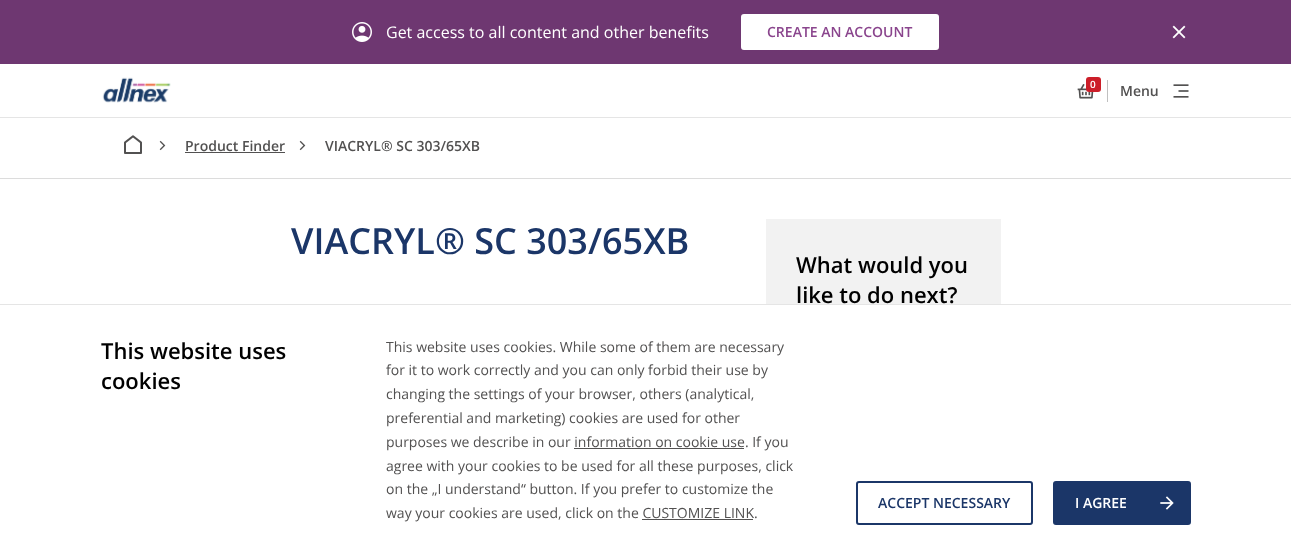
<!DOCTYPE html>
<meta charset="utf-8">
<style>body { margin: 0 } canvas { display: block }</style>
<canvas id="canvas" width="1291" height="555"></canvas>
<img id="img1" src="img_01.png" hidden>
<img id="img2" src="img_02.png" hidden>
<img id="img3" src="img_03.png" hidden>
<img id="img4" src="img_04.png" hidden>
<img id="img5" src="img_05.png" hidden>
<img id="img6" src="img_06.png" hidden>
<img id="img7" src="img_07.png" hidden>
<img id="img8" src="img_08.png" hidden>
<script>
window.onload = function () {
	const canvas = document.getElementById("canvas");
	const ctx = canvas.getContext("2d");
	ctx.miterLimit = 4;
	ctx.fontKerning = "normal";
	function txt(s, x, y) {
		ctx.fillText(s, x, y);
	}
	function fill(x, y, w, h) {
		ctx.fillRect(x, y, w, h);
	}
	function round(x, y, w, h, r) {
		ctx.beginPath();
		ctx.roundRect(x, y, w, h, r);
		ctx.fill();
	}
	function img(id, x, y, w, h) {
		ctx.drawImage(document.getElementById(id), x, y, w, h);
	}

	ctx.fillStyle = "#FFFFFF";
	fill(0, 0, 1291, 555);
	ctx.fillStyle = "#6E3771";
	fill(0, 0, 1291, 64);
	img("img1", 352, 22, 20, 20);
	ctx.fillStyle = "#FFFFFF";
	ctx.beginPath();
	ctx.roundRect(742, 15, 196, 34, 2);
	ctx.fill();
	ctx.strokeStyle = "#FFFFFF";
	ctx.lineWidth = 2;
	ctx.stroke();
	img("img2", 1172, 25, 14, 14);
	ctx.fillStyle = "#E5E5E5";
	fill(0, 117, 1291, 1);
	img("img3", 102, 77, 69, 26);
	img("img4", 1077, 84, 17, 15);
	ctx.fillStyle = "#CC1E29";
	round(1086, 77, 15, 15, 3);
	ctx.fillStyle = "#C0C0C0";
	fill(1107, 80, 1, 22);
	img("img5", 1173, 84, 16, 14);
	ctx.fillStyle = "#DCDCDC";
	fill(0, 178, 1291, 1);
	img("img6", 124, 135, 18, 19);
	img("img7", 159, 140, 7, 11);
	ctx.fillStyle = "#525151";
	fill(185, 152, 100, 1);
	img("img7", 299, 140, 7, 11);
	ctx.fillStyle = "#F2F2F2";
	fill(766, 219, 235, 85);
	ctx.fillStyle = "#E5E5E5";
	fill(0, 304, 1291, 1);
	ctx.fillStyle = "#525151";
	fill(574, 448, 170, 1);
	fill(642, 519, 111, 1);
	ctx.beginPath();
	ctx.roundRect(857, 482, 175, 42, 2);
	ctx.strokeStyle = "#1B3668";
	ctx.stroke();
	ctx.fillStyle = "#1B3668";
	ctx.beginPath();
	ctx.roundRect(1054, 482, 136, 42, 2);
	ctx.fill();
	ctx.stroke();
	img("img8", 1160, 496, 14, 14);
	ctx.font = "16px Open Sans";
	ctx.fillStyle = "#FFFFFF";
	txt("Get access to all content and other benefits", 386, 38);
	ctx.font = "600 14px Open Sans";
	ctx.fillStyle = "#8A458D";
	txt("CREATE AN ACCOUNT", 767, 37);
	ctx.font = "600 10px Open Sans";
	ctx.fillStyle = "#FFFFFF";
	txt("0", 1090, 88);
	ctx.font = "600 14px Open Sans";
	ctx.fillStyle = "#525151";
	txt("Menu", 1120, 96);
	txt("Product Finder", 185, 151);
	txt("VIACRYL® SC 303/65XB", 325, 151);
	ctx.font = "600 36px Open Sans";
	ctx.fillStyle = "#1B3668";
	txt("VIACRYL® SC 303/65XB", 291, 254);
	ctx.font = "600 22px Open Sans";
	ctx.fillStyle = "#000000";
	txt("What would you", 796, 273);
	txt("like to do next?", 796, 303);
	txt("This website uses", 101, 359);
	txt("cookies", 101, 389);
	ctx.font = "14px Open Sans";
	ctx.fillStyle = "#525151";
	txt("This website uses cookies. While some of them are necessary", 386, 352);
	txt("for it to work correctly and you can only forbid their use by", 386, 375);
	txt("changing the settings of your browser, others (analytical,", 386, 399);
	txt("preferential and marketing) cookies are used for other", 386, 423);
	txt("purposes we describe in our information on cookie use. If you", 386, 447);
	txt("agree with your cookies to be used for all these purposes, click", 386, 471);
	txt("on the „I understand“ button. If you prefer to customize the", 386, 494);
	txt("way your cookies are used, click on the CUSTOMIZE LINK.", 386, 518);
	ctx.font = "600 14px Open Sans";
	ctx.fillStyle = "#1B3668";
	txt("ACCEPT NECESSARY", 878, 508);
	ctx.fillStyle = "#FFFFFF";
	txt("I AGREE", 1075, 508);
};
</script>
